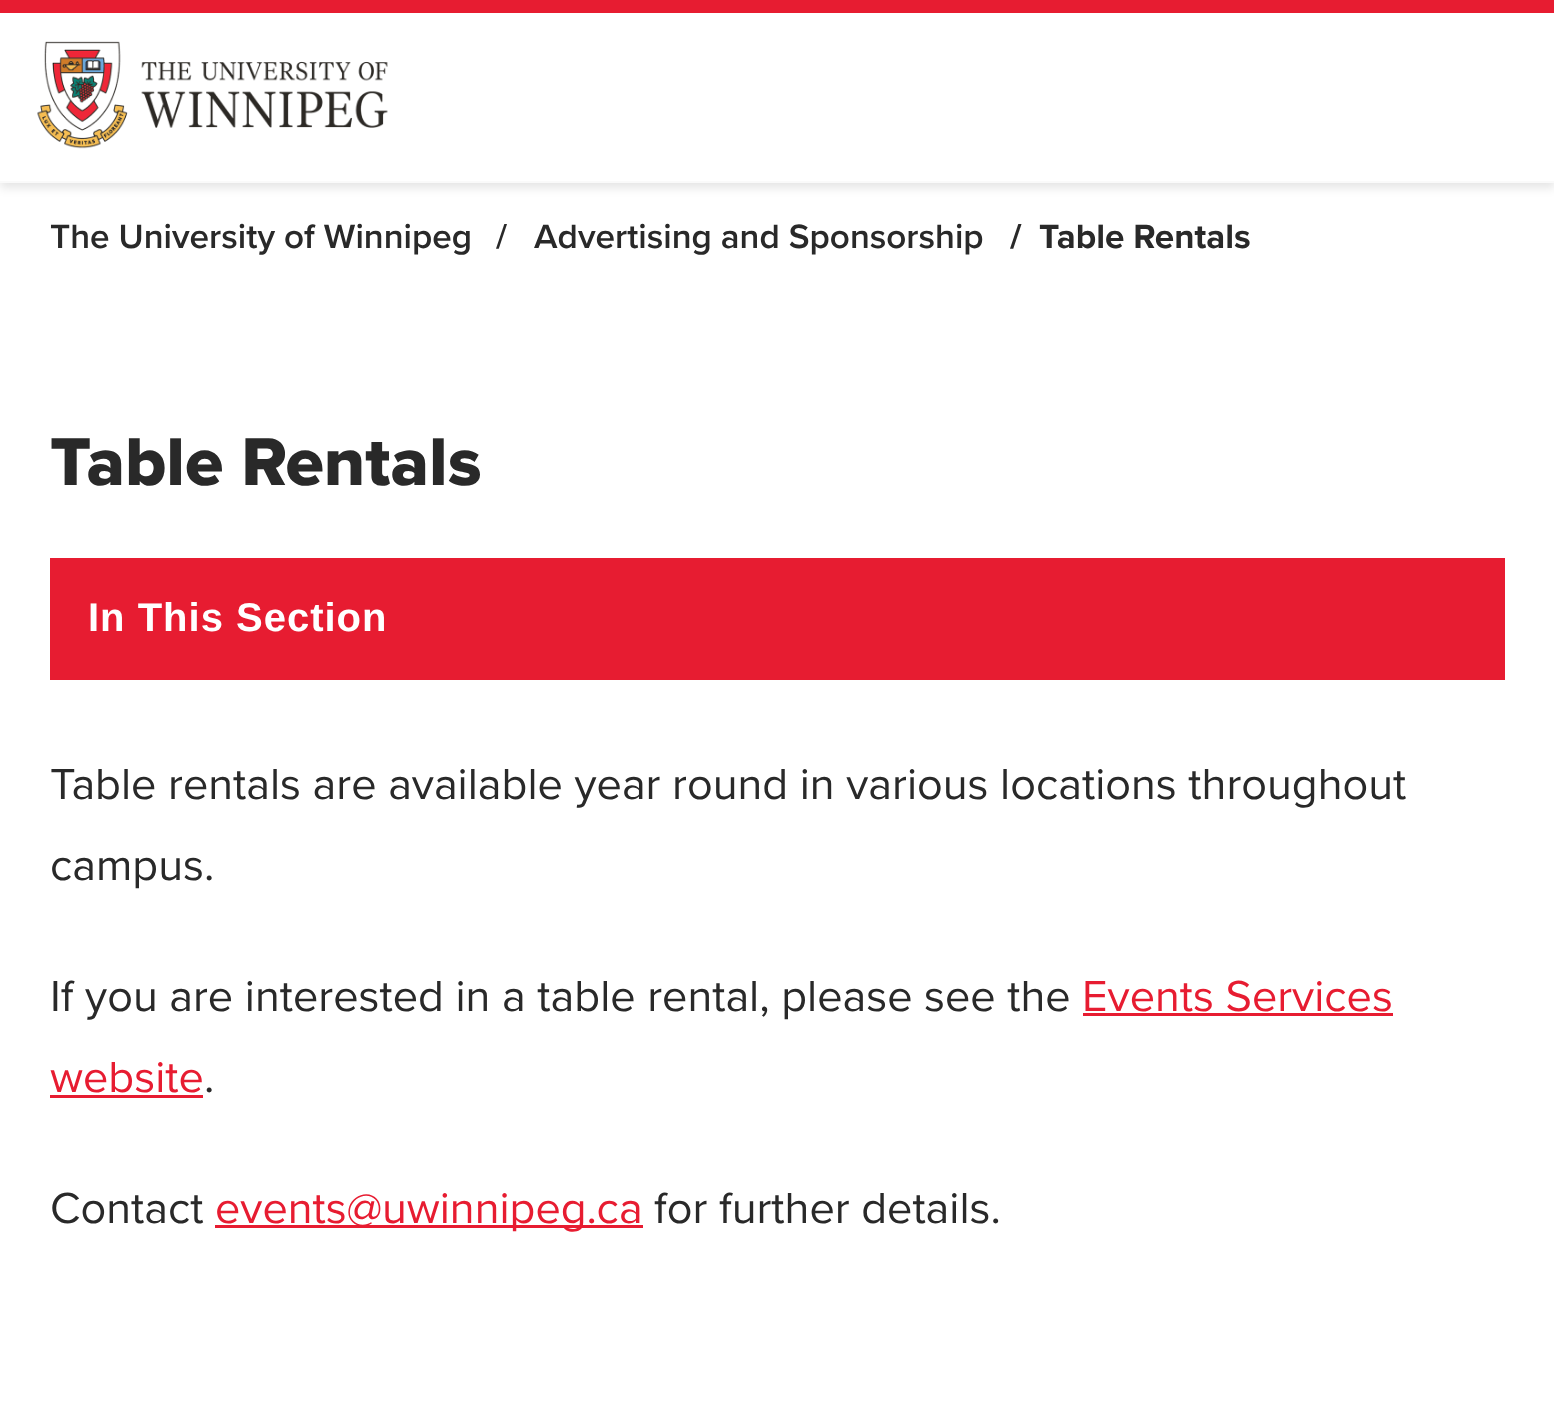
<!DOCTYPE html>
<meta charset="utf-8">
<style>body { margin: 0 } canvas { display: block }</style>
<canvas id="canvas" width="1554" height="1401"></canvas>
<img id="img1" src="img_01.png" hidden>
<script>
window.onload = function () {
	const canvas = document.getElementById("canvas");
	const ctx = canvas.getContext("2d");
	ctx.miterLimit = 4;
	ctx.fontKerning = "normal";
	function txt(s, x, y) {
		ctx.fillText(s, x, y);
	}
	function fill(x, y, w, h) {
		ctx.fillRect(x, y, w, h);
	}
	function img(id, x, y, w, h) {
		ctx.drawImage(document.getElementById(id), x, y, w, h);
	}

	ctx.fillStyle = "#FFFFFF";
	fill(0, 0, 1554, 1401);
	ctx.fillStyle = "rgba(0, 0, 0, 0.1)";
	ctx.filter = "blur(5px)";
	ctx.beginPath();
	ctx.rect(0, 5, 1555, 183);
	ctx.fill();
	ctx.filter = "none";
	ctx.fillStyle = "#FFFFFF";
	fill(0, 13, 1554, 168);
	ctx.fillStyle = "#E71C31";
	fill(0, 0, 1554, 13);
	ctx.fillStyle = "#FAFAFA";
	fill(0, 181, 1554, 2);
	img("img1", 37, 41, 351, 108);
	ctx.fillStyle = "#E71C31";
	fill(50, 558, 1455, 122);
	fill(1083, 1013, 310, 3);
	fill(50, 1095, 153, 3);
	fill(215, 1225, 428, 3);
	ctx.font = "600 35px Proxima Nova";
	ctx.fillStyle = "#292929";
	txt("The University of Winnipeg", 50, 248);
	txt("/", 496, 248);
	txt("Advertising and Sponsorship", 534, 248);
	ctx.font = "bold 35px Proxima Nova";
	txt("/", 1010, 248);
	txt("Table Rentals", 1039, 248);
	ctx.font = "800 70px Proxima Nova";
	txt("Table Rentals", 50, 485);
	ctx.letterSpacing = "1px";
	ctx.font = "bold 40px Liberation Sans";
	ctx.fillStyle = "#FFFFFF";
	txt("In This Section", 88, 631);
	ctx.letterSpacing = "0px";
	ctx.font = "45px Proxima Nova";
	ctx.fillStyle = "#292929";
	txt("Table rentals are available year round in various locations throughout", 50, 799);
	txt("campus.", 50, 880);
	txt("If you are interested in a table rental, please see the", 50, 1011);
	ctx.fillStyle = "#E71C31";
	txt("Events Services", 1082, 1011);
	txt("website", 50, 1092);
	ctx.fillStyle = "#292929";
	txt(".", 204, 1092);
	txt("Contact", 50, 1223);
	ctx.fillStyle = "#E71C31";
	txt("events@uwinnipeg.ca", 215, 1223);
	ctx.fillStyle = "#292929";
	txt("for further details.", 654, 1223);
};
</script>
